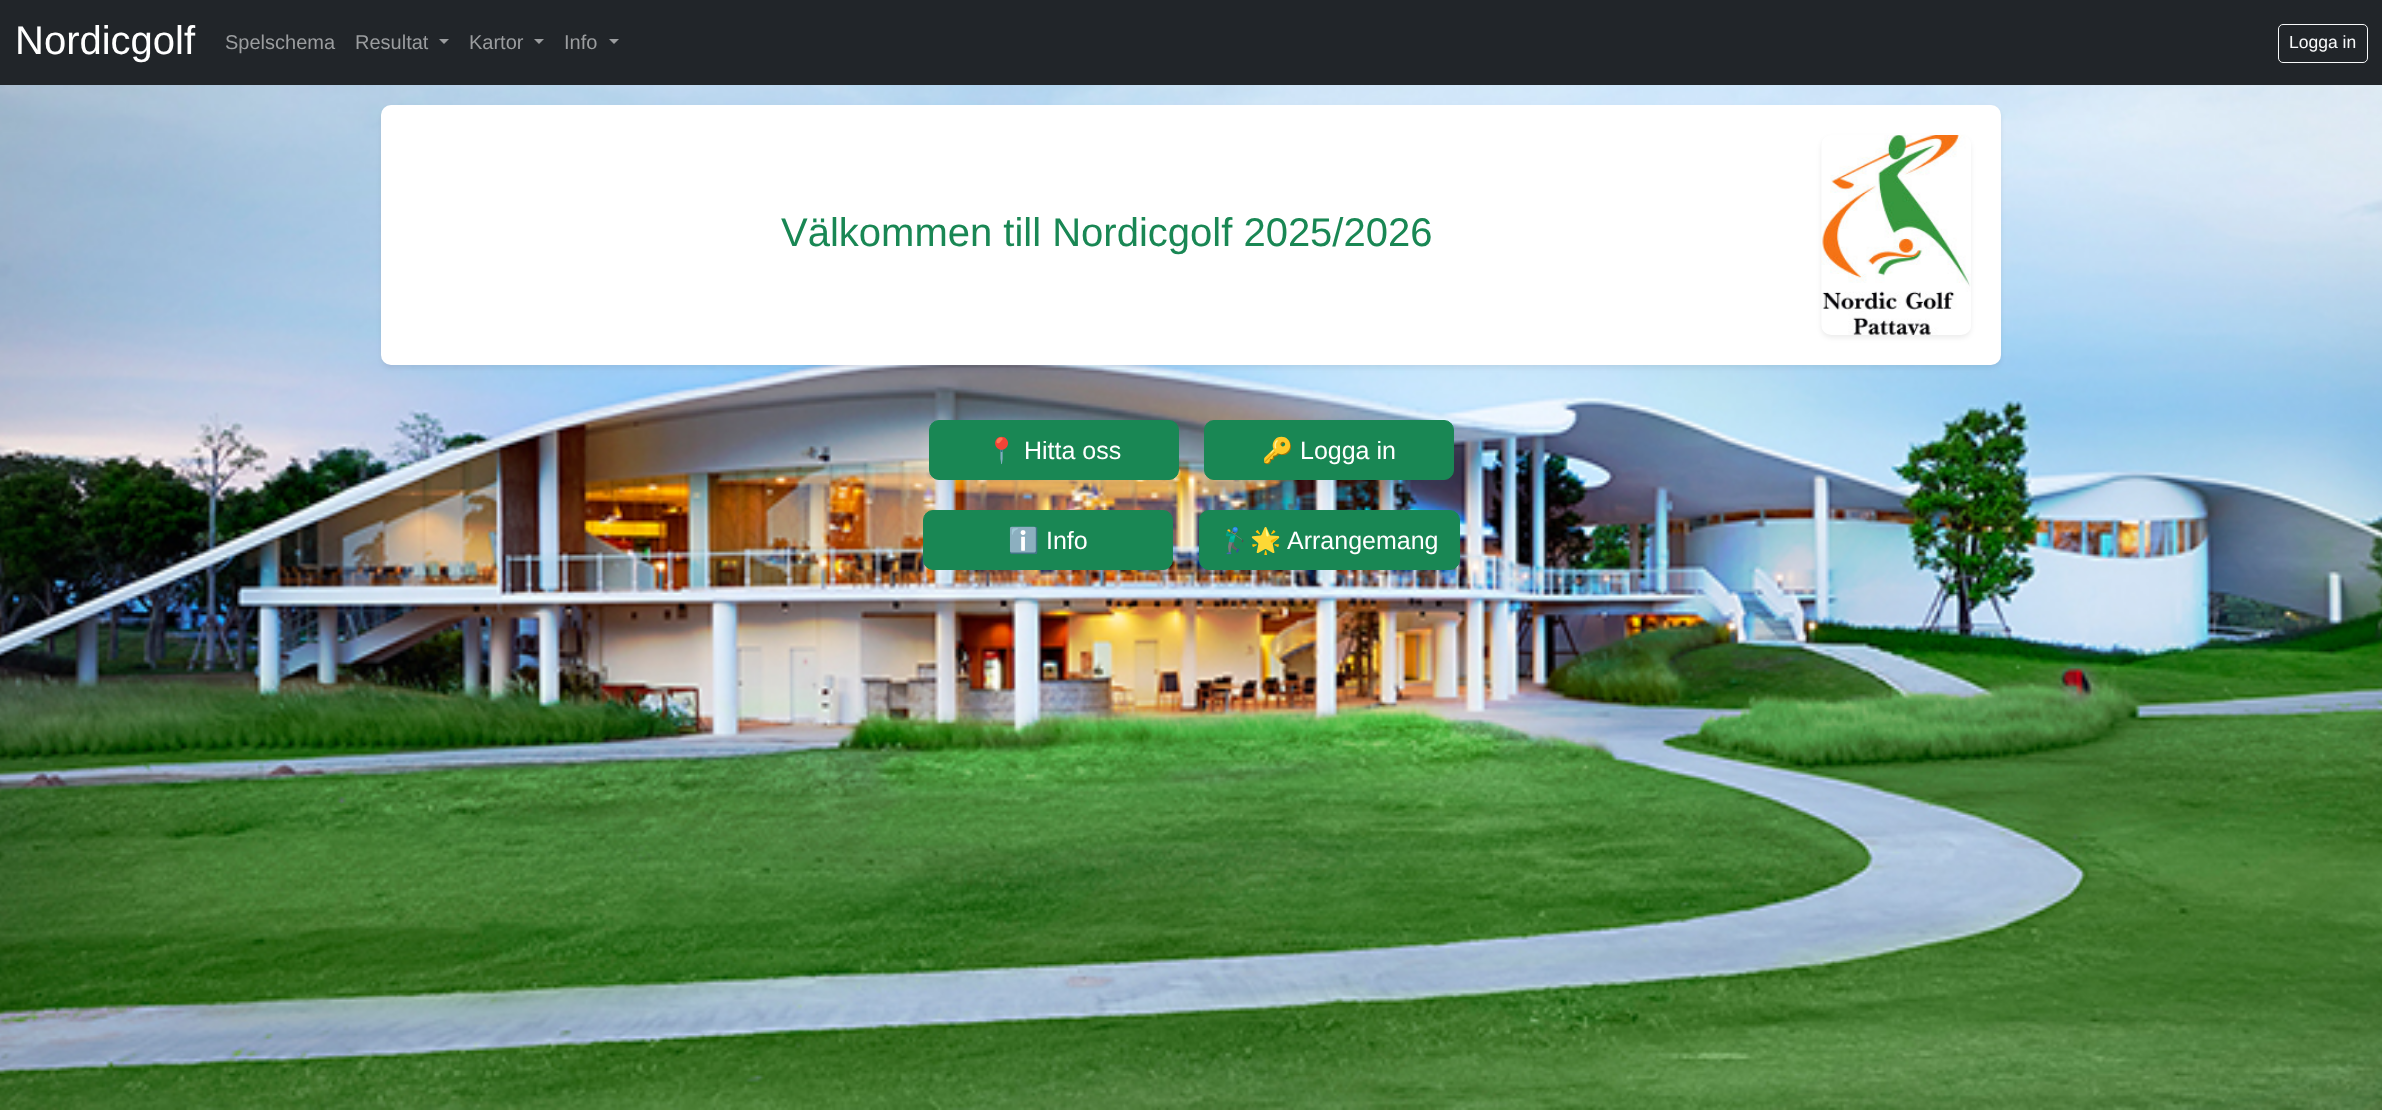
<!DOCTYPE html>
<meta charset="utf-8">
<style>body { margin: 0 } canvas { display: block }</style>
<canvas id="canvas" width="2382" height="1110"></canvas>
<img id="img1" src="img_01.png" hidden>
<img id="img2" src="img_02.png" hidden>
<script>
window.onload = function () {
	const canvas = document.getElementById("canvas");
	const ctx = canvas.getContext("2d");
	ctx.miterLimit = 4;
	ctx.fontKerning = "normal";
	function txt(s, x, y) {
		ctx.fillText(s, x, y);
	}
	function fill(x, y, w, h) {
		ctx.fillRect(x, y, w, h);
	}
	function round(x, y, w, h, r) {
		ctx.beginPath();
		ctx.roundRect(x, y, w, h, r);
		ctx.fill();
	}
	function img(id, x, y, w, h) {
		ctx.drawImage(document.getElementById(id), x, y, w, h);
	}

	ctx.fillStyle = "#FFFFFF";
	fill(0, 0, 2382, 1110);
	img("img1", 0, 85, 2382, 1025);
	ctx.fillStyle = "#212529";
	fill(0, 0, 2382, 85);
	ctx.fillStyle = "#9B9D9F";
	ctx.beginPath();
	ctx.moveTo(439, 39);
	ctx.lineTo(449, 39);
	ctx.lineTo(444, 44);
	ctx.closePath();
	ctx.fill();
	ctx.beginPath();
	ctx.moveTo(534, 39);
	ctx.lineTo(544, 39);
	ctx.lineTo(539, 44);
	ctx.closePath();
	ctx.fill();
	ctx.beginPath();
	ctx.moveTo(609, 39);
	ctx.lineTo(619, 39);
	ctx.lineTo(614, 44);
	ctx.closePath();
	ctx.fill();
	ctx.beginPath();
	ctx.roundRect(2278.5, 24.5, 89, 38, 4.5);
	ctx.strokeStyle = "#F8F9FA";
	ctx.stroke();
	ctx.fillStyle = "rgba(0, 0, 0, 0.07)";
	ctx.filter = "blur(2.5px)";
	ctx.beginPath();
	ctx.roundRect(381, 108, 1620, 260, 10);
	ctx.fill();
	ctx.filter = "none";
	ctx.fillStyle = "#FFFFFF";
	round(381, 105, 1620, 260, 10);
	ctx.fillStyle = "rgba(0, 0, 0, 0.07)";
	ctx.filter = "blur(2.5px)";
	ctx.beginPath();
	ctx.roundRect(1821, 138, 150, 200, 10);
	ctx.fill();
	ctx.filter = "none";
	img("img2", 1821, 135, 150, 200);
	ctx.fillStyle = "#198754";
	ctx.beginPath();
	ctx.roundRect(929.5, 420.5, 249, 59, 9.5);
	ctx.fill();
	ctx.strokeStyle = "#198754";
	ctx.stroke();
	ctx.beginPath();
	ctx.roundRect(1204.5, 420.5, 249, 59, 9.5);
	ctx.fill();
	ctx.stroke();
	ctx.beginPath();
	ctx.roundRect(923.5, 510.5, 249, 59, 9.5);
	ctx.fill();
	ctx.stroke();
	ctx.beginPath();
	ctx.roundRect(1199.5, 510.5, 260, 59, 9.5);
	ctx.fill();
	ctx.stroke();
	ctx.font = "40px Liberation Sans";
	ctx.fillStyle = "#FFFFFF";
	txt("Nordicgolf", 15, 54);
	ctx.font = "20px Liberation Sans";
	ctx.fillStyle = "#9B9D9F";
	txt("Spelschema", 225, 49);
	txt("Resultat", 355, 49);
	txt("Kartor", 469, 49);
	txt("Info", 564, 49);
	ctx.font = "17.5px Liberation Sans";
	ctx.fillStyle = "#F8F9FA";
	txt("Logga in", 2289, 48);
	ctx.font = "40px Liberation Sans";
	ctx.fillStyle = "#198754";
	txt("Välkommen till Nordicgolf 2025/2026", 781, 246);
	ctx.font = "25px Noto Color Emoji";
	ctx.fillStyle = "#FFFFFF";
	txt("📍", 986, 459);
	ctx.font = "25px Liberation Sans";
	txt("Hitta oss", 1024, 459);
	ctx.font = "25px Noto Color Emoji";
	txt("🔑", 1262, 459);
	ctx.font = "25px Liberation Sans";
	txt("Logga in", 1300, 459);
	ctx.font = "25px Noto Color Emoji";
	txt("ℹ️", 1008, 549);
	ctx.font = "25px Liberation Sans";
	txt("Info", 1046, 549);
	ctx.font = "25px Noto Color Emoji";
	txt("🏌️‍♂️🌟", 1219, 549);
	ctx.font = "25px Liberation Sans";
	txt("Arrangemang", 1287, 549);
};
</script>
